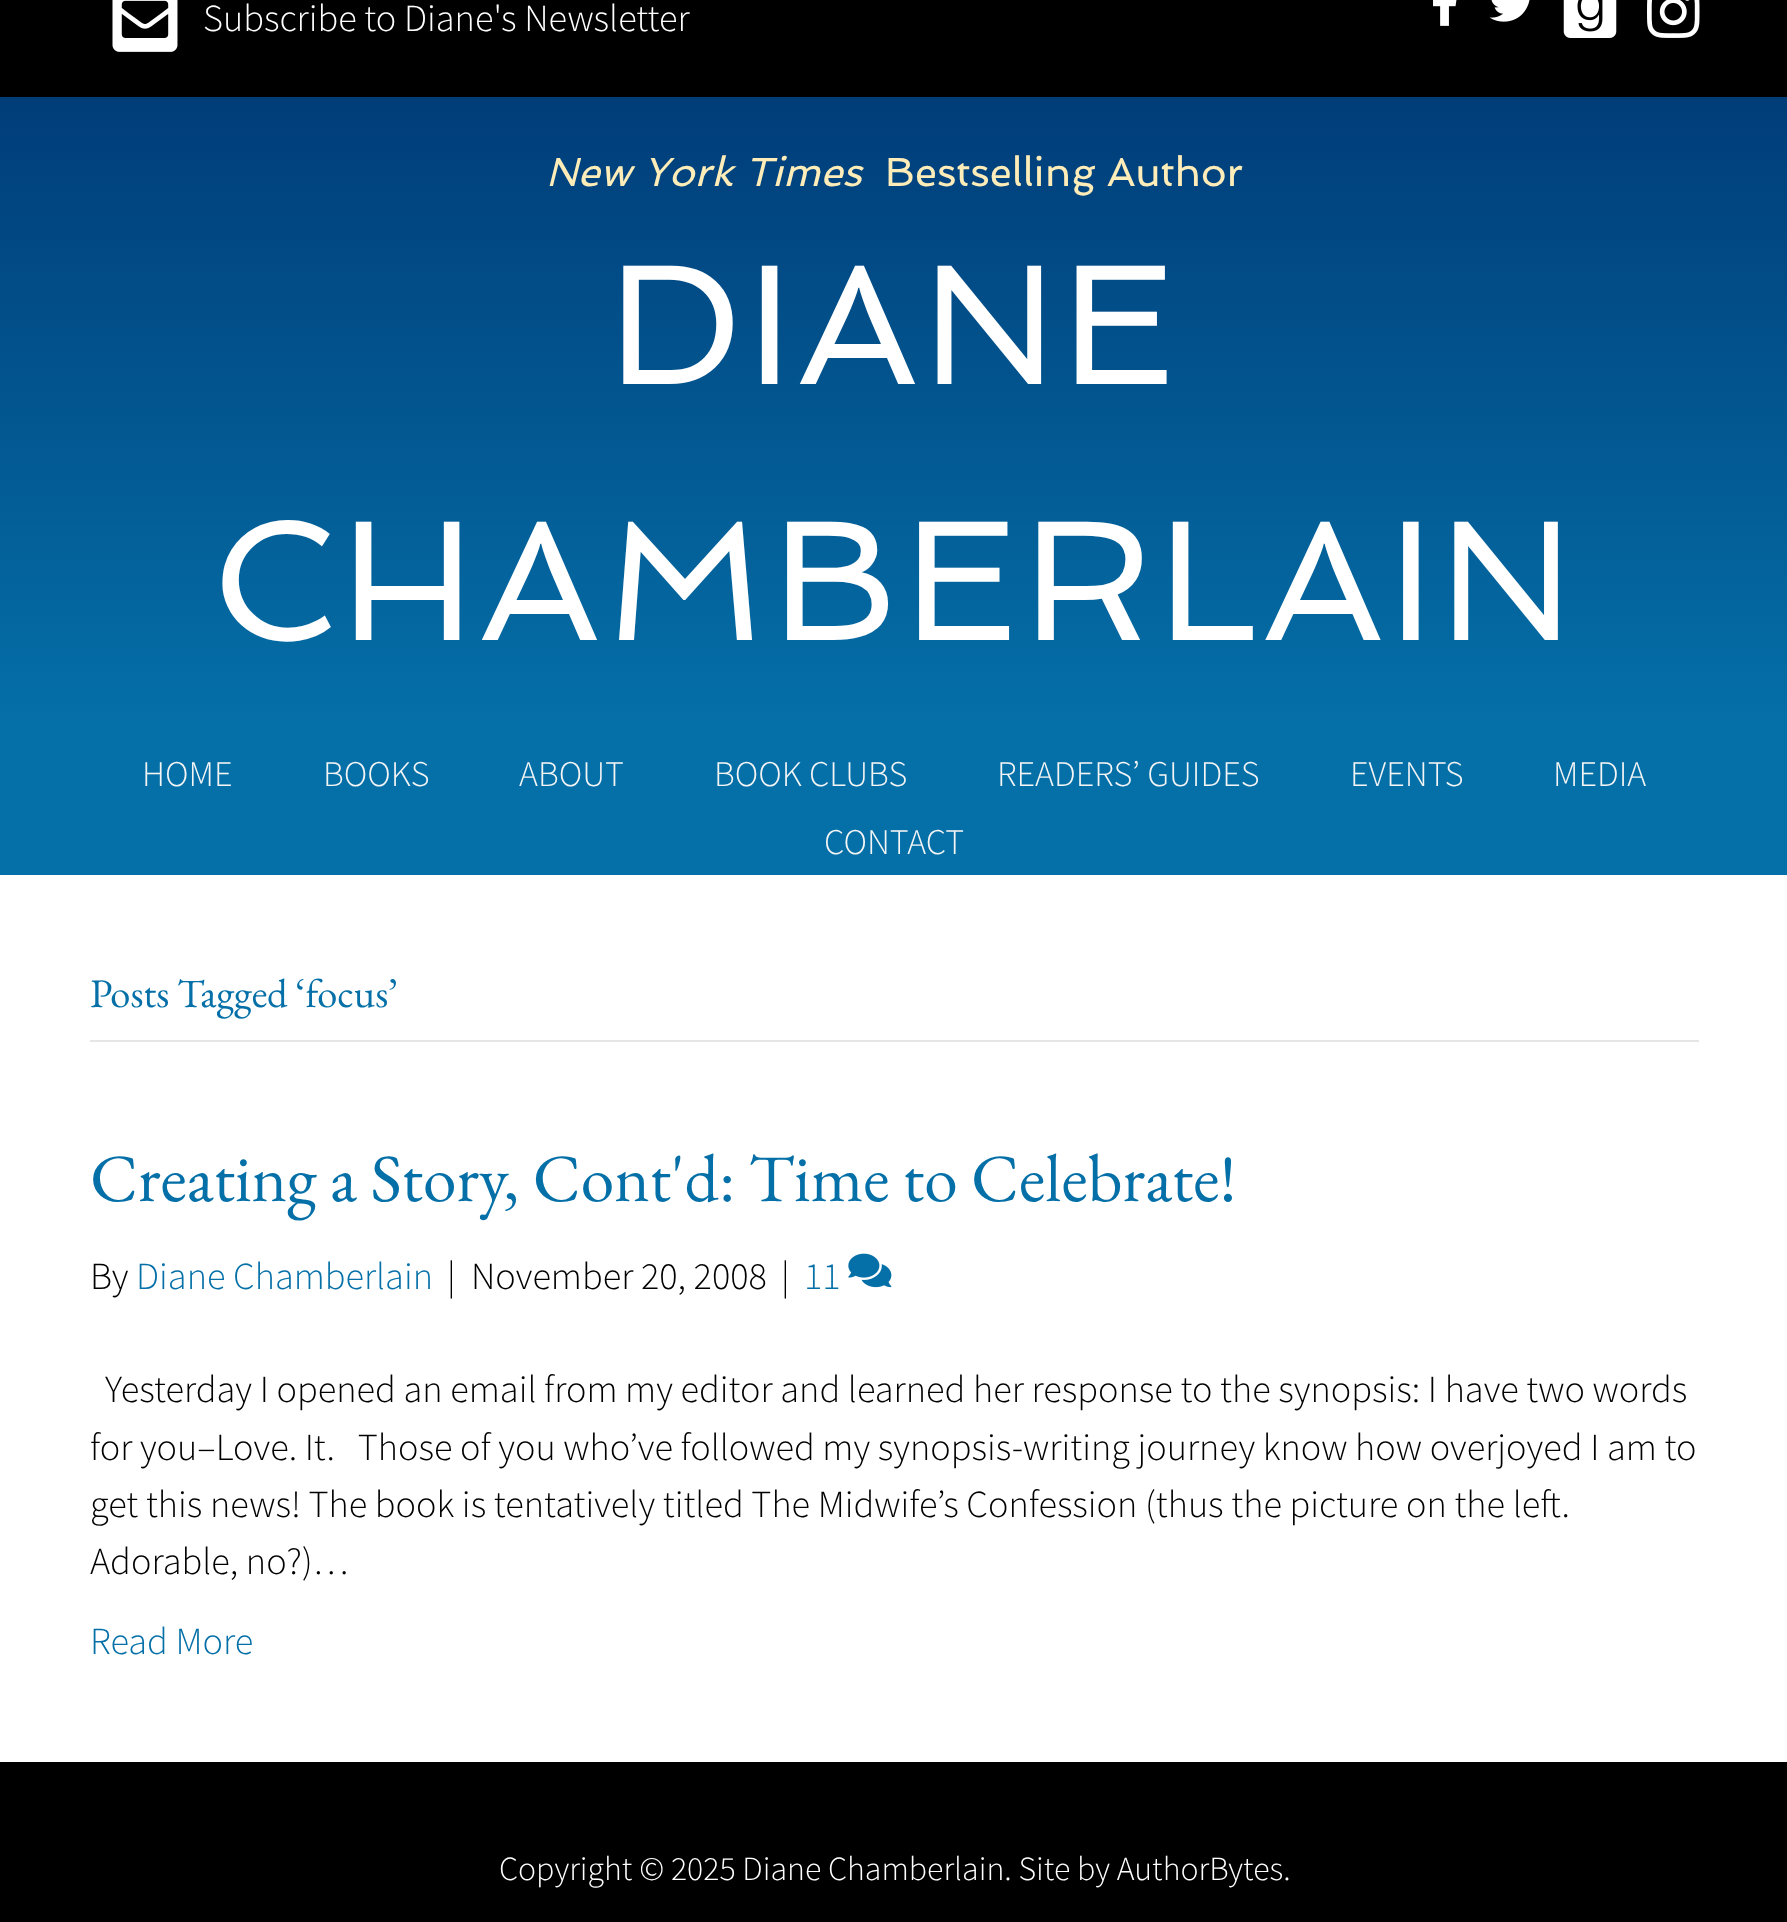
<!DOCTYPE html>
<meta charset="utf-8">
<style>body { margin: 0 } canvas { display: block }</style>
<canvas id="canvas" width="1787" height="1922"></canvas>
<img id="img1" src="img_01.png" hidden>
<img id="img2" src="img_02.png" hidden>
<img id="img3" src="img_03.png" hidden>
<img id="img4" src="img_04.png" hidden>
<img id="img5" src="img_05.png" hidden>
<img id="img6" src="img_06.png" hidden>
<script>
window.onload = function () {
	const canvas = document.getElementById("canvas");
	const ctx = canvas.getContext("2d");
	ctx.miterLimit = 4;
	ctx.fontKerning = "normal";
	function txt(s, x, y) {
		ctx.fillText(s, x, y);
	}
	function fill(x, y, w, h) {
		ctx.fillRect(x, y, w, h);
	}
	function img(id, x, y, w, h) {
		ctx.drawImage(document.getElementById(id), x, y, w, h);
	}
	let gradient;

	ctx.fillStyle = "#FFFFFF";
	fill(0, 0, 1787, 1922);
	ctx.fillStyle = "#000000";
	fill(0, 0, 1787, 97);
	img("img1", 112, 0, 66, 52);
	img("img2", 1433, 0, 24, 26);
	img("img3", 1489, 0, 41, 22);
	img("img4", 1563, 0, 54, 38);
	img("img5", 1647, 0, 53, 38);
	gradient = ctx.createLinearGradient(894, 97, 894, 734);
	gradient.addColorStop(0, "#003D79");
	gradient.addColorStop(1, "#0570A8");
	ctx.fillStyle = gradient;
	fill(0, 97, 1787, 637);
	ctx.fillStyle = "#0570A8";
	fill(0, 734, 1787, 141);
	ctx.fillStyle = "#E6E6E6";
	fill(90, 1040, 1609, 2);
	img("img6", 848, 1253, 44, 35);
	ctx.fillStyle = "#000000";
	fill(0, 1762, 1787, 160);
	ctx.font = "300 38.25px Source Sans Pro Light";
	ctx.fillStyle = "#FFFFFF";
	txt("Subscribe to Diane's Newsletter", 203, 31);
	ctx.font = "italic 40.5px Spinnaker";
	ctx.fillStyle = "#FFEDB9";
	txt("New York Times", 546, 186);
	ctx.font = "40.5px Spinnaker";
	txt("Bestselling Author", 885, 186);
	ctx.letterSpacing = "5px";
	ctx.font = "171px Spinnaker";
	ctx.fillStyle = "#FFFFFF";
	txt("DIANE", 608, 384);
	txt("CHAMBERLAIN", 211, 640);
	ctx.letterSpacing = "0px";
	ctx.font = "300 36px Source Sans Pro Light";
	ctx.fillStyle = "#F5F5F5";
	txt("HOME", 142, 786);
	txt("BOOKS", 323, 786);
	txt("ABOUT", 519, 786);
	txt("BOOK CLUBS", 714, 786);
	txt("READERS’ GUIDES", 997, 786);
	txt("EVENTS", 1350, 786);
	txt("MEDIA", 1553, 786);
	txt("CONTACT", 824, 854);
	ctx.font = "40.5px EB Garamond";
	ctx.fillStyle = "#0570A8";
	txt("Posts Tagged ‘focus’", 90, 1007);
	ctx.font = "67.5px EB Garamond";
	txt("Creating a Story, Cont'd: Time to Celebrate!", 90, 1201);
	ctx.font = "300 38.25px Source Sans Pro Light";
	ctx.fillStyle = "#000000";
	txt("By", 90, 1289);
	ctx.fillStyle = "#0570A8";
	txt("Diane Chamberlain", 136, 1289);
	ctx.fillStyle = "#000000";
	txt("|", 447, 1289);
	txt("November 20, 2008", 471, 1289);
	txt("|", 781, 1289);
	ctx.fillStyle = "#0570A8";
	txt("11", 804, 1289);
	ctx.fillStyle = "#000000";
	txt("Yesterday I opened an email from my editor and learned her response to the synopsis: I have two words", 105, 1402);
	txt("for you–Love. It.   Those of you who’ve followed my synopsis-writing journey know how overjoyed I am to", 90, 1460);
	txt("get this news! The book is tentatively titled The Midwife’s Confession (thus the picture on the left.", 90, 1517);
	txt("Adorable, no?)…", 90, 1574);
	ctx.fillStyle = "#0570A8";
	txt("Read More", 90, 1654);
	ctx.font = "300 33.75px Source Sans Pro Light";
	ctx.fillStyle = "#FFFFFF";
	txt("Copyright © 2025 Diane Chamberlain. Site by AuthorBytes.", 499, 1880);
};
</script>
